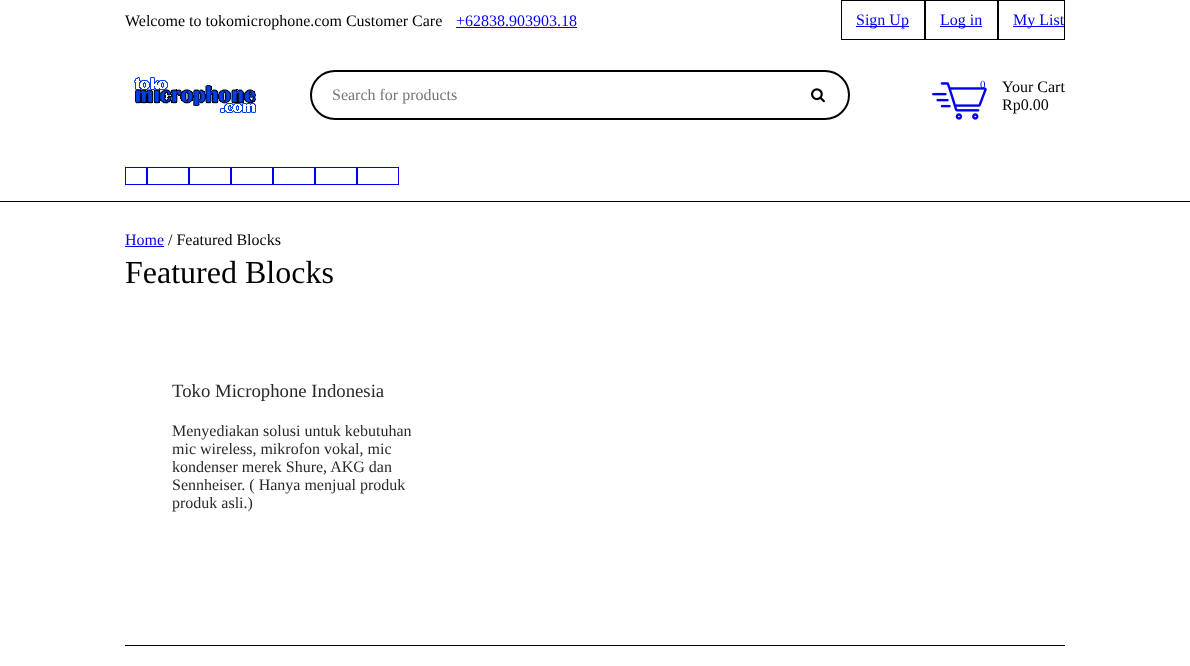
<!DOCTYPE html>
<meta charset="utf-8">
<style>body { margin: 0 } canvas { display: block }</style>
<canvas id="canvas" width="1190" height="666"></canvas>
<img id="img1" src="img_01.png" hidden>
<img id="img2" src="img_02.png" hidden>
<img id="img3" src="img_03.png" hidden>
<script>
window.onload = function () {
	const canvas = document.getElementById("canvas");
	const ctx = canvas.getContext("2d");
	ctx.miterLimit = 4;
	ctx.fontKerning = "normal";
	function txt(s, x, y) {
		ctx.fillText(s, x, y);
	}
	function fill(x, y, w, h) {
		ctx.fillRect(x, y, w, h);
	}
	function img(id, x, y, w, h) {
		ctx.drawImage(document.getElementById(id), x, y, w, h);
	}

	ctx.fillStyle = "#FFFFFF";
	fill(0, 0, 1190, 666);
	ctx.fillStyle = "#0000EE";
	fill(456, 27, 121, 1);
	ctx.strokeStyle = "#000000";
	ctx.strokeRect(841.5, 0.5, 83, 39);
	fill(856, 26, 53, 1);
	ctx.strokeRect(925.5, 0.5, 72, 39);
	fill(940, 26, 42, 1);
	ctx.strokeRect(998.5, 0.5, 66, 39);
	fill(1013, 26, 51, 1);
	img("img1", 134, 77, 122, 36);
	ctx.beginPath();
	ctx.roundRect(311, 71, 538, 48, 24);
	ctx.lineWidth = 2;
	ctx.stroke();
	img("img2", 811, 88, 14, 15);
	img("img3", 932, 82, 55, 38);
	ctx.fillStyle = "#000000";
	fill(0, 201, 1190, 1);
	ctx.strokeStyle = "#0000EE";
	ctx.lineWidth = 1;
	ctx.strokeRect(125.5, 167.5, 21, 17);
	ctx.strokeRect(147.5, 167.5, 41, 17);
	ctx.strokeRect(189.5, 167.5, 41, 17);
	ctx.strokeRect(231.5, 167.5, 41, 17);
	ctx.strokeRect(273.5, 167.5, 41, 17);
	ctx.strokeRect(315.5, 167.5, 41, 17);
	ctx.strokeRect(357.5, 167.5, 41, 17);
	ctx.fillStyle = "#0000EE";
	fill(125, 246, 39, 1);
	ctx.fillStyle = "#000000";
	fill(125, 645, 940, 1);
	ctx.font = "16px Liberation Serif";
	txt("Welcome to tokomicrophone.com Customer Care", 125, 26);
	ctx.fillStyle = "#0000EE";
	txt("+62838.903903.18", 456, 26);
	txt("Sign Up", 856, 25);
	txt("Log in", 940, 25);
	txt("My List", 1013, 25);
	ctx.fillStyle = "#757575";
	txt("Search for products", 332, 100);
	ctx.font = "11px Liberation Serif";
	ctx.fillStyle = "#0000EE";
	txt("0", 980, 88);
	ctx.font = "16px Liberation Serif";
	ctx.fillStyle = "#000000";
	txt("Your Cart", 1002, 92);
	txt("Rp0.00", 1002, 110);
	ctx.fillStyle = "#0000EE";
	txt("Home", 125, 245);
	ctx.fillStyle = "#000000";
	txt("/ Featured Blocks", 168, 245);
	ctx.font = "32px Liberation Serif";
	txt("Featured Blocks", 125, 283);
	ctx.font = "18.75px Liberation Serif";
	ctx.fillStyle = "#29292A";
	txt("Toko Microphone Indonesia", 172, 397);
	ctx.font = "16px Liberation Serif";
	txt("Menyediakan solusi untuk kebutuhan", 172, 436);
	txt("mic wireless, mikrofon vokal, mic", 172, 454);
	txt("kondenser merek Shure, AKG dan", 172, 472);
	txt("Sennheiser. ( Hanya menjual produk", 172, 490);
	txt("produk asli.)", 172, 508);
};
</script>
